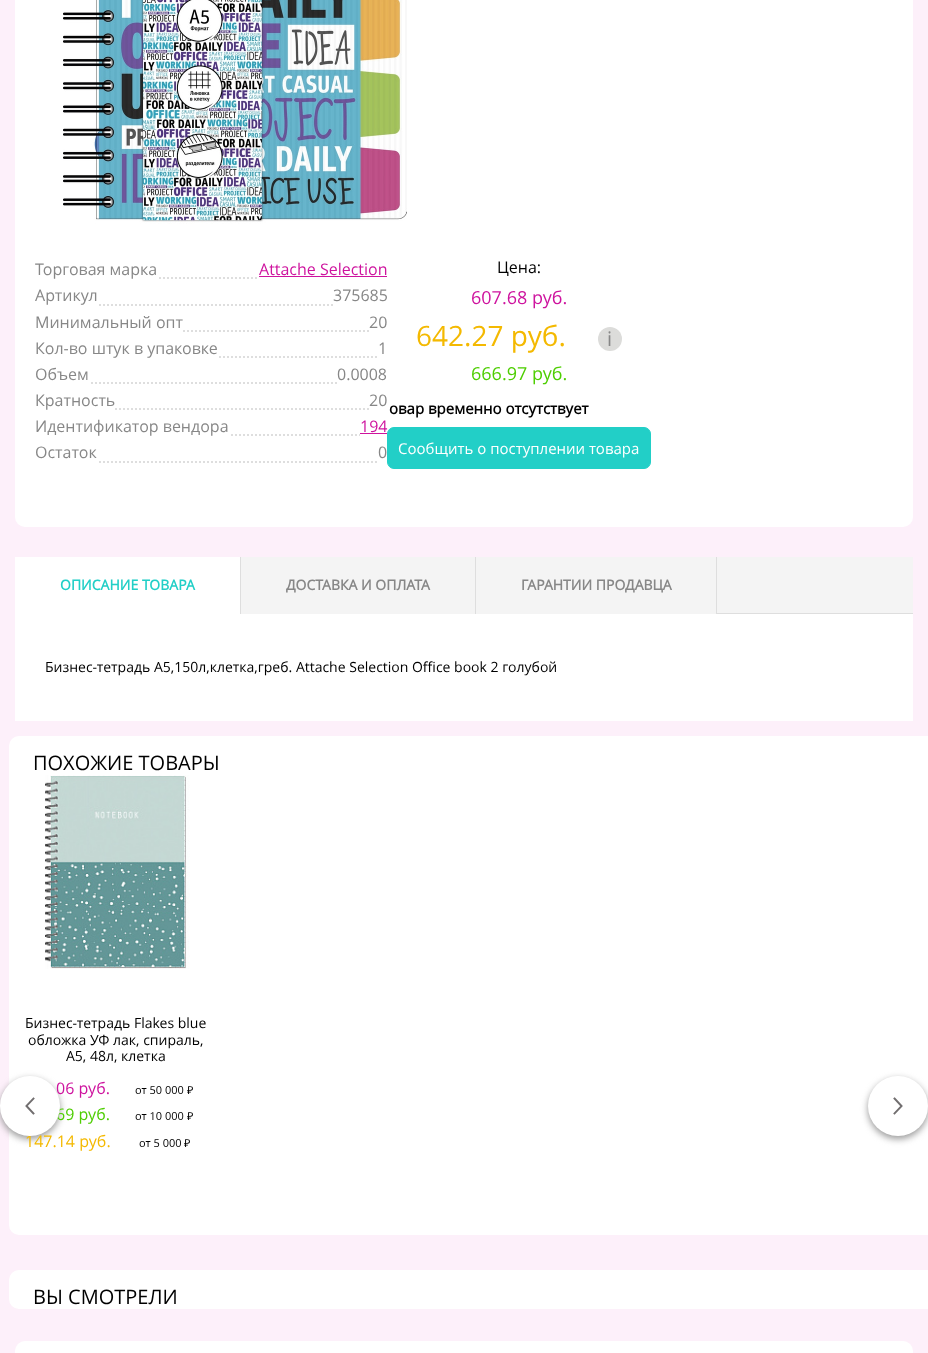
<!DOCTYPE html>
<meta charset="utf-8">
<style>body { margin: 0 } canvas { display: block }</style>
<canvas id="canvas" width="928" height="1353"></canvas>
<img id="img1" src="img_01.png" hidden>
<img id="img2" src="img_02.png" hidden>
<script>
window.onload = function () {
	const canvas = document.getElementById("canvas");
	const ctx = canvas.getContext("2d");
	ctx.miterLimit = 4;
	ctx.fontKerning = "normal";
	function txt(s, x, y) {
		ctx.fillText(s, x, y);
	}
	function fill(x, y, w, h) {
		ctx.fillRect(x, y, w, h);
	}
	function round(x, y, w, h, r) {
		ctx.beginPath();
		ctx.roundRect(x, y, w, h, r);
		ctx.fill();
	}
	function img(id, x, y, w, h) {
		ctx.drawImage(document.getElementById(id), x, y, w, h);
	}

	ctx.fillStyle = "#FDF0FA";
	fill(0, 0, 928, 1353);
	ctx.fillStyle = "#FFFFFF";
	round(15, -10, 898, 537, 10);
	img("img1", 63, 0, 344, 224);
	ctx.beginPath();
	ctx.moveTo(35, 278);
	ctx.lineTo(387, 278);
	ctx.strokeStyle = "#DEDEDE";
	ctx.lineWidth = 2;
	ctx.setLineDash([2, 2]);
	ctx.stroke();
	fill(35, 277, 122, 2);
	fill(259, 277, 126, 2);
	ctx.fillStyle = "#CE139E";
	fill(259, 276, 128, 1);
	ctx.beginPath();
	ctx.moveTo(35, 305);
	ctx.lineTo(387, 305);
	ctx.stroke();
	ctx.fillStyle = "#FFFFFF";
	fill(35, 304, 62, 2);
	fill(335, 304, 50, 2);
	ctx.beginPath();
	ctx.moveTo(35, 331);
	ctx.lineTo(387, 331);
	ctx.stroke();
	fill(35, 330, 146, 2);
	fill(371, 330, 14, 2);
	ctx.beginPath();
	ctx.moveTo(35, 357);
	ctx.lineTo(387, 357);
	ctx.stroke();
	fill(35, 356, 182, 2);
	fill(379, 356, 6, 2);
	ctx.beginPath();
	ctx.moveTo(35, 383);
	ctx.lineTo(387, 383);
	ctx.stroke();
	fill(35, 382, 54, 2);
	fill(339, 382, 46, 2);
	ctx.beginPath();
	ctx.moveTo(35, 409);
	ctx.lineTo(387, 409);
	ctx.stroke();
	fill(35, 408, 78, 2);
	fill(371, 408, 14, 2);
	ctx.beginPath();
	ctx.moveTo(35, 435);
	ctx.lineTo(387, 435);
	ctx.stroke();
	fill(35, 434, 194, 2);
	fill(360, 434, 25, 2);
	ctx.fillStyle = "#CE139E";
	fill(360, 433, 27, 1);
	ctx.beginPath();
	ctx.moveTo(35, 462);
	ctx.lineTo(387, 462);
	ctx.stroke();
	ctx.fillStyle = "#FFFFFF";
	fill(35, 461, 62, 2);
	fill(379, 461, 6, 2);
	ctx.fillStyle = "#DCDCDA";
	ctx.beginPath();
	ctx.arc(610, 339, 12, 0, Math.PI * 2);
	ctx.fill();
	ctx.fillStyle = "#22CFC7";
	ctx.beginPath();
	ctx.roundRect(387.5, 427.5, 263, 41, 6.5);
	ctx.fill();
	ctx.strokeStyle = "#22CFC7";
	ctx.lineWidth = 1;
	ctx.setLineDash([]);
	ctx.stroke();
	ctx.fillStyle = "#F4F4F4";
	fill(717, 557, 196, 56);
	ctx.fillStyle = "#DEDEDE";
	fill(717, 613, 196, 1);
	ctx.fillStyle = "#FFFFFF";
	fill(15, 557, 225, 57);
	ctx.fillStyle = "#DEDEDE";
	fill(240, 557, 1, 57);
	ctx.fillStyle = "#F4F4F4";
	fill(241, 557, 234, 57);
	ctx.fillStyle = "#DEDEDE";
	fill(475, 557, 1, 57);
	ctx.fillStyle = "#F4F4F4";
	fill(476, 557, 240, 57);
	ctx.fillStyle = "#DEDEDE";
	fill(716, 557, 1, 57);
	ctx.fillStyle = "#FFFFFF";
	fill(15, 614, 898, 107);
	round(9, 736, 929, 499, 10);
	img("img2", 45, 775, 145, 194);
	ctx.fillStyle = "#999999";
	ctx.filter = "blur(3.5px)";
	ctx.beginPath();
	ctx.roundRect(0, 1079, 60, 60, 30);
	ctx.fill();
	ctx.filter = "none";
	ctx.filter = "blur(3.5px)";
	ctx.beginPath();
	ctx.roundRect(868, 1079, 60, 60, 30);
	ctx.fill();
	ctx.filter = "none";
	ctx.fillStyle = "#FFFFFF";
	ctx.beginPath();
	ctx.arc(898, 1106, 30, 0, Math.PI * 2);
	ctx.fill();
	ctx.beginPath();
	ctx.moveTo(894.5, 1098.5);
	ctx.lineTo(901.5, 1106);
	ctx.moveTo(901.5, 1106);
	ctx.lineTo(894.5, 1113.5);
	ctx.strokeStyle = "#716E6F";
	ctx.lineWidth = 1.9;
	ctx.lineCap = "square";
	ctx.stroke();
	round(9, 1270, 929, 39, 10);
	round(15, 1341, 898, 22, 10);
	ctx.font = "16px Open Sans";
	ctx.fillStyle = "#878787";
	txt("Торговая марка", 35, 275);
	ctx.fillStyle = "#CE139E";
	txt("Attache Selection", 259, 275);
	ctx.fillStyle = "#878787";
	txt("Артикул", 35, 301);
	txt("375685", 333, 301);
	txt("Минимальный опт", 35, 328);
	txt("20", 369, 328);
	txt("Кол-во штук в упаковке", 35, 354);
	txt("1", 378, 354);
	txt("Объем", 35, 380);
	txt("0.0008", 337, 380);
	txt("Кратность", 35, 406);
	txt("20", 369, 406);
	txt("Идентификатор вендора", 35, 432);
	ctx.fillStyle = "#CE139E";
	txt("194", 360, 432);
	ctx.fillStyle = "#878787";
	txt("Остаток", 35, 458);
	txt("0", 378, 458);
	ctx.fillStyle = "#000000";
	txt("Цена:", 497, 273);
	ctx.font = "18px Open Sans";
	ctx.fillStyle = "#CE139E";
	txt("607.68 руб.", 471, 304);
	ctx.font = "28px Open Sans";
	ctx.fillStyle = "#F4B901";
	txt("642.27 руб.", 416, 346);
	ctx.font = "20px 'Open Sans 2'";
	ctx.fillStyle = "#878787";
	txt("i", 607, 346);
	ctx.font = "18px Open Sans";
	ctx.fillStyle = "#4ECE02";
	txt("666.97 руб.", 471, 380);
	ctx.font = "bold 15px Open Sans";
	ctx.fillStyle = "#000000";
	txt("овар временно отсутствует", 389, 414);
	ctx.font = "15px Open Sans";
	ctx.fillStyle = "#FFFFFF";
	txt("Cообщить о поступлении товара", 398, 454);
	ctx.font = "bold 14px Open Sans";
	ctx.fillStyle = "#22CFC7";
	txt("ОПИСАНИЕ ТОВАРА", 60, 590);
	ctx.fillStyle = "#878787";
	txt("ДОСТАВКА И ОПЛАТА", 286, 590);
	txt("ГАРАНТИИ ПРОДАВЦА", 521, 590);
	ctx.font = "14px Open Sans";
	ctx.fillStyle = "#000000";
	txt("Бизнес-тетрадь A5,150л,клетка,греб. Attache Selection Office book 2 голубой", 45, 672);
	ctx.font = "20px 'Open Sans 2'";
	txt("ПОХОЖИЕ ТОВАРЫ", 33, 770);
	ctx.font = "14px Open Sans";
	txt("Бизнес-тетрадь Flakes blue", 25, 1028);
	txt("обложка УФ лак, спираль,", 28, 1045);
	txt("А5, 48л, клетка", 66, 1061);
	ctx.font = "16px Open Sans";
	ctx.fillStyle = "#CE139E";
	txt("06 руб.", 56, 1094);
	ctx.font = "11px Open Sans";
	ctx.fillStyle = "#000000";
	txt("от 50 000", 135, 1094);
	ctx.font = "11px Noto Sans";
	txt("₽", 187, 1094);
	ctx.font = "16px Open Sans";
	ctx.fillStyle = "#4ECE02";
	txt("69 руб.", 56, 1120);
	ctx.font = "11px Open Sans";
	ctx.fillStyle = "#000000";
	txt("от 10 000", 135, 1120);
	ctx.font = "11px Noto Sans";
	txt("₽", 187, 1120);
	ctx.font = "16px Open Sans";
	ctx.fillStyle = "#F4B901";
	txt("147.14 руб.", 25, 1147);
	ctx.font = "11px Open Sans";
	ctx.fillStyle = "#000000";
	txt("от 5 000", 139, 1147);
	ctx.font = "11px Noto Sans";
	txt("₽", 184, 1147);
	ctx.fillStyle = "#FFFFFF";
	ctx.beginPath();
	ctx.arc(30, 1106, 30, 0, Math.PI * 2);
	ctx.fill();
	ctx.beginPath();
	ctx.moveTo(33.5, 1113.5);
	ctx.lineTo(26.5, 1106);
	ctx.moveTo(26.5, 1106);
	ctx.lineTo(33.5, 1098.5);
	ctx.stroke();
	ctx.font = "20px 'Open Sans 2'";
	ctx.fillStyle = "#000000";
	txt("ВЫ СМОТРЕЛИ", 33, 1304);
};
</script>
